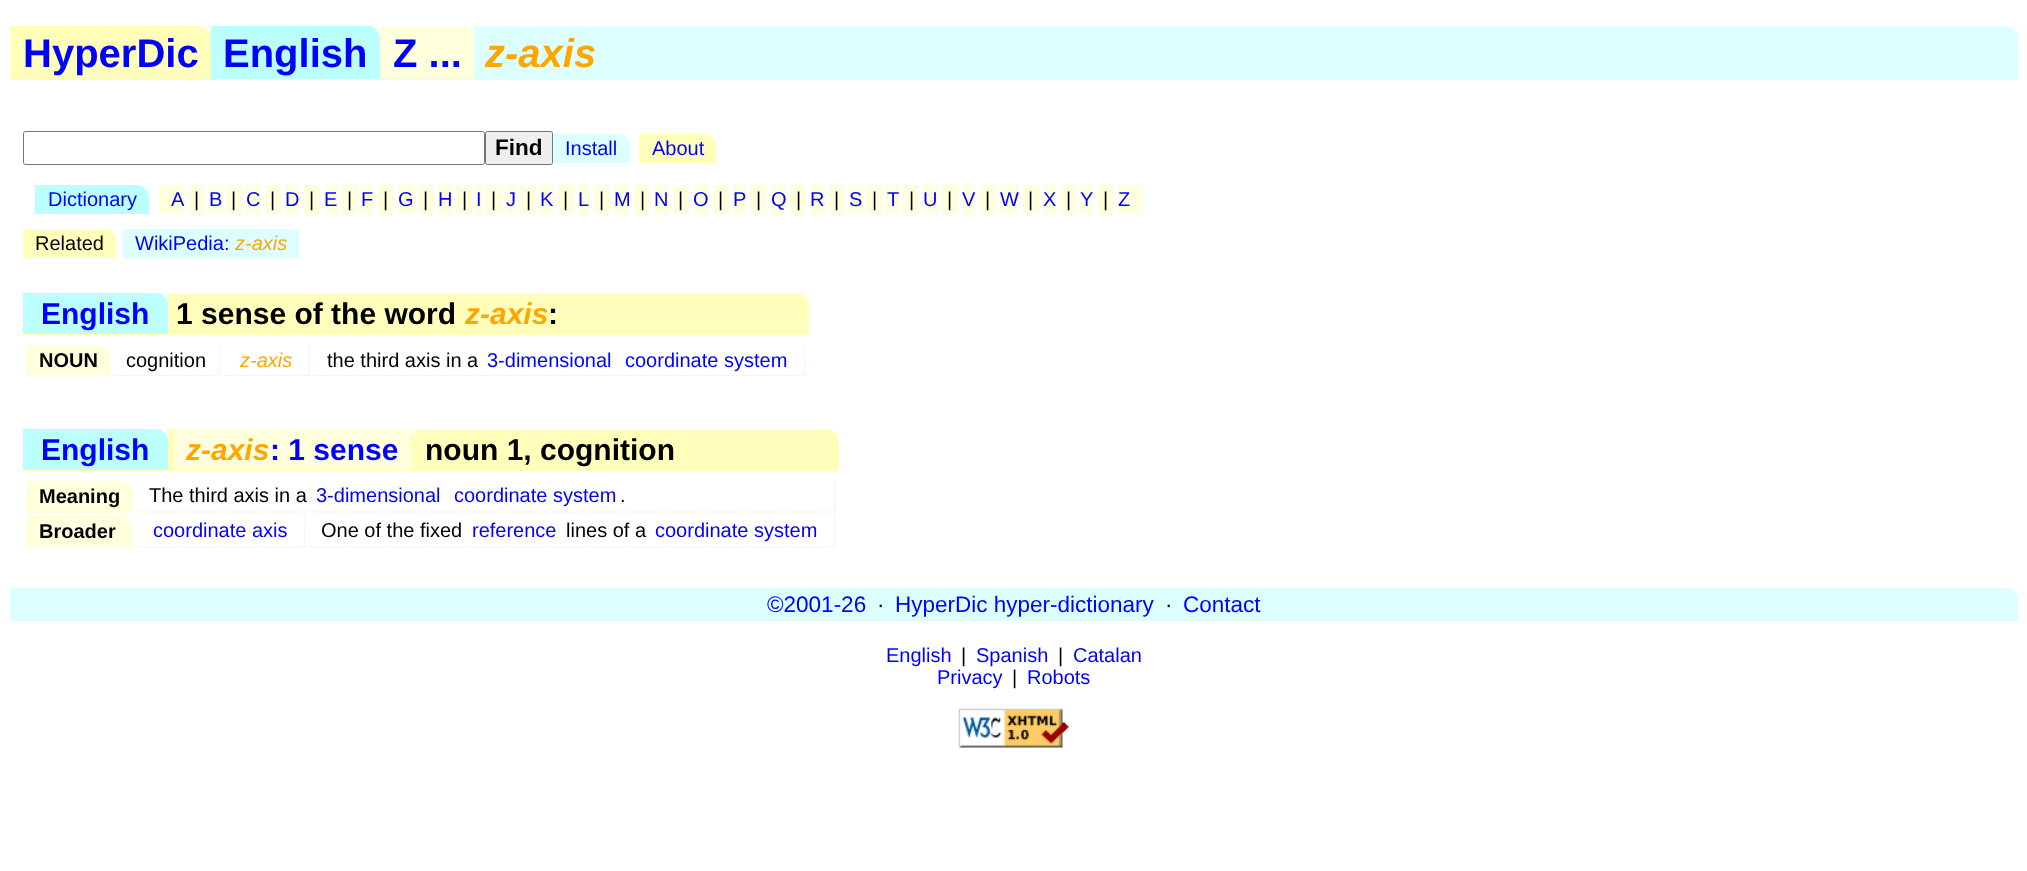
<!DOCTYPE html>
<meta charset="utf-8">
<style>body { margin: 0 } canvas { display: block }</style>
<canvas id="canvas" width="2027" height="871"></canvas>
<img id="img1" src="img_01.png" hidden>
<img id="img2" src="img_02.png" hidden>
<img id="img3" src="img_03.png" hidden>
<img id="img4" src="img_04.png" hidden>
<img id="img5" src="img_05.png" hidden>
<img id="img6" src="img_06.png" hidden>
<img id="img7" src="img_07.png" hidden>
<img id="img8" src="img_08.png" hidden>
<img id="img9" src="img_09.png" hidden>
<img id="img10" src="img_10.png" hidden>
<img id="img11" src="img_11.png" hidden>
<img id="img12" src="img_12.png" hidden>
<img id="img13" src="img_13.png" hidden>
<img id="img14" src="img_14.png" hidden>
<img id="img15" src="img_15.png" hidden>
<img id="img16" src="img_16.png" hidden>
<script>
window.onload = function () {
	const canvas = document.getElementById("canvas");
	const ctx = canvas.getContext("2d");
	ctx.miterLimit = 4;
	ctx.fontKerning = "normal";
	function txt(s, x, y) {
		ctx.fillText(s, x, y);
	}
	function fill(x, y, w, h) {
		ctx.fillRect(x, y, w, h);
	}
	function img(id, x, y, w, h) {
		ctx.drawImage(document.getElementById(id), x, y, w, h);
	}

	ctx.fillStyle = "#FFFFFF";
	fill(0, 0, 2027, 871);
	ctx.fillStyle = "#DDFFFF";
	fill(10, 26, 2008, 54);
	img("img1", 2007, 26, 11, 11);
	ctx.fillStyle = "#FFFFBB";
	fill(10, 26, 201, 53);
	img("img2", 200, 26, 11, 12);
	ctx.fillStyle = "#BBFFFF";
	fill(211, 26, 169, 53);
	img("img3", 369, 26, 11, 12);
	ctx.fillStyle = "#FFFFDD";
	fill(380, 26, 94, 53);
	img("img4", 463, 26, 11, 11);
	ctx.beginPath();
	ctx.roundRect(23.5, 131.5, 461, 33, 2);
	ctx.strokeStyle = "#767676";
	ctx.stroke();
	ctx.fillStyle = "#EFEFEF";
	ctx.beginPath();
	ctx.roundRect(485.5, 131.5, 67, 33, 2);
	ctx.fill();
	ctx.stroke();
	ctx.fillStyle = "#DDFFFF";
	fill(553, 134, 77, 29);
	img("img5", 619, 134, 11, 10);
	ctx.fillStyle = "#FFFFBB";
	fill(639, 134, 77, 29);
	img("img6", 705, 134, 11, 11);
	ctx.fillStyle = "#BBFFFF";
	fill(35, 185, 114, 29);
	img("img7", 137, 185, 12, 11);
	ctx.fillStyle = "#FFFFDD";
	fill(159, 185, 25, 29);
	fill(189, 185, 16, 29);
	fill(209, 185, 14, 29);
	fill(226, 185, 17, 29);
	fill(246, 185, 15, 29);
	fill(265, 185, 16, 29);
	fill(285, 185, 15, 29);
	fill(304, 185, 16, 29);
	fill(324, 185, 14, 29);
	fill(341, 185, 17, 29);
	fill(361, 185, 13, 29);
	fill(378, 185, 16, 29);
	fill(398, 185, 16, 29);
	fill(418, 185, 16, 29);
	fill(438, 185, 15, 29);
	fill(456, 185, 17, 29);
	fill(476, 185, 7, 29);
	fill(486, 185, 17, 29);
	fill(506, 185, 10, 29);
	fill(520, 185, 16, 29);
	fill(540, 185, 14, 29);
	fill(558, 185, 16, 29);
	fill(578, 185, 11, 29);
	fill(594, 185, 16, 29);
	fill(614, 185, 16, 29);
	fill(634, 185, 16, 29);
	fill(655, 185, 14, 29);
	fill(673, 185, 16, 29);
	fill(694, 185, 15, 29);
	fill(713, 185, 16, 29);
	fill(733, 185, 13, 29);
	fill(750, 185, 16, 29);
	fill(771, 185, 15, 29);
	fill(790, 185, 16, 29);
	fill(810, 185, 15, 29);
	fill(829, 185, 16, 29);
	fill(849, 185, 14, 29);
	fill(866, 185, 17, 29);
	fill(886, 185, 13, 29);
	fill(903, 185, 16, 29);
	fill(924, 185, 14, 29);
	fill(941, 185, 17, 29);
	fill(963, 185, 12, 29);
	fill(980, 185, 16, 29);
	fill(1000, 185, 19, 29);
	fill(1023, 185, 16, 29);
	fill(1043, 185, 13, 29);
	fill(1060, 185, 16, 29);
	fill(1080, 185, 14, 29);
	fill(1098, 185, 16, 29);
	fill(1118, 185, 25, 29);
	ctx.fillStyle = "#FFFFBB";
	fill(23, 229, 93, 29);
	img("img6", 105, 229, 11, 11);
	ctx.fillStyle = "#DDFFFF";
	fill(123, 229, 176, 29);
	ctx.fillStyle = "#FFFFBB";
	fill(23, 293, 786, 42);
	img("img8", 798, 293, 11, 11);
	ctx.fillStyle = "#BBFFFF";
	fill(23, 293, 145, 41);
	img("img9", 156, 293, 12, 11);
	ctx.fillStyle = "#FFFFDD";
	fill(26, 345, 84, 31);
	img("img10", 99, 345, 11, 11);
	ctx.beginPath();
	ctx.moveTo(219.5, 345);
	ctx.lineTo(219.5, 376);
	ctx.strokeStyle = "#EEEECC";
	ctx.lineWidth = 1.2;
	ctx.setLineDash([1.25, 1.25]);
	ctx.stroke();
	ctx.beginPath();
	ctx.moveTo(114, 375.5);
	ctx.lineTo(220, 375.5);
	ctx.stroke();
	ctx.beginPath();
	ctx.moveTo(309.5, 345);
	ctx.lineTo(309.5, 376);
	ctx.stroke();
	ctx.beginPath();
	ctx.moveTo(224, 375.5);
	ctx.lineTo(310, 375.5);
	ctx.stroke();
	ctx.beginPath();
	ctx.moveTo(804.5, 345);
	ctx.lineTo(804.5, 376);
	ctx.stroke();
	ctx.beginPath();
	ctx.moveTo(314, 375.5);
	ctx.lineTo(805, 375.5);
	ctx.stroke();
	ctx.fillStyle = "#FFFFBB";
	fill(23, 429, 816, 42);
	img("img11", 827, 429, 12, 11);
	ctx.fillStyle = "#BBFFFF";
	fill(23, 429, 145, 41);
	img("img12", 156, 429, 12, 11);
	img("img13", 411, 429, 6, 11);
	ctx.fillStyle = "#FFFFDD";
	fill(174, 429, 237, 41);
	fill(26, 481, 107, 32);
	img("img14", 122, 481, 11, 11);
	ctx.beginPath();
	ctx.moveTo(834.5, 481);
	ctx.lineTo(834.5, 512.5);
	ctx.stroke();
	ctx.beginPath();
	ctx.moveTo(136, 512);
	ctx.lineTo(835, 512);
	ctx.stroke();
	fill(26, 516, 107, 32);
	img("img14", 122, 516, 11, 11);
	ctx.beginPath();
	ctx.moveTo(304.5, 516);
	ctx.lineTo(304.5, 547.5);
	ctx.stroke();
	ctx.beginPath();
	ctx.moveTo(136, 547);
	ctx.lineTo(305, 547);
	ctx.stroke();
	ctx.beginPath();
	ctx.moveTo(834.5, 516);
	ctx.lineTo(834.5, 547.5);
	ctx.stroke();
	ctx.beginPath();
	ctx.moveTo(309, 547);
	ctx.lineTo(835, 547);
	ctx.stroke();
	ctx.fillStyle = "#DDFFFF";
	fill(10, 588, 2008, 33);
	img("img15", 2007, 588, 11, 10);
	img("img16", 958, 708, 111, 40);
	ctx.font = "bold 40px Liberation Sans";
	ctx.fillStyle = "#0000FF";
	txt("HyperDic", 23, 67);
	txt("English", 223, 67);
	txt("Z ...", 393, 67);
	ctx.font = "italic bold 40px Liberation Sans";
	ctx.fillStyle = "#FFA500";
	txt("z-axis", 485, 67);
	ctx.font = "bold 22.5px Liberation Sans";
	ctx.fillStyle = "#000000";
	txt("Find", 495, 155);
	ctx.font = "20px Liberation Sans";
	ctx.fillStyle = "#0000FF";
	txt("Install", 565, 155);
	txt("About", 652, 155);
	txt("Dictionary", 48, 206);
	txt("A", 171, 206);
	ctx.fillStyle = "#000000";
	txt("|", 194, 206);
	ctx.fillStyle = "#0000FF";
	txt("B", 209, 206);
	ctx.fillStyle = "#000000";
	txt("|", 231, 206);
	ctx.fillStyle = "#0000FF";
	txt("C", 246, 206);
	ctx.fillStyle = "#000000";
	txt("|", 270, 206);
	ctx.fillStyle = "#0000FF";
	txt("D", 285, 206);
	ctx.fillStyle = "#000000";
	txt("|", 309, 206);
	ctx.fillStyle = "#0000FF";
	txt("E", 324, 206);
	ctx.fillStyle = "#000000";
	txt("|", 347, 206);
	ctx.fillStyle = "#0000FF";
	txt("F", 361, 206);
	ctx.fillStyle = "#000000";
	txt("|", 383, 206);
	ctx.fillStyle = "#0000FF";
	txt("G", 398, 206);
	ctx.fillStyle = "#000000";
	txt("|", 423, 206);
	ctx.fillStyle = "#0000FF";
	txt("H", 438, 206);
	ctx.fillStyle = "#000000";
	txt("|", 462, 206);
	ctx.fillStyle = "#0000FF";
	txt("I", 476, 206);
	ctx.fillStyle = "#000000";
	txt("|", 491, 206);
	ctx.fillStyle = "#0000FF";
	txt("J", 506, 206);
	ctx.fillStyle = "#000000";
	txt("|", 526, 206);
	ctx.fillStyle = "#0000FF";
	txt("K", 540, 206);
	ctx.fillStyle = "#000000";
	txt("|", 563, 206);
	ctx.fillStyle = "#0000FF";
	txt("L", 578, 206);
	ctx.fillStyle = "#000000";
	txt("|", 599, 206);
	ctx.fillStyle = "#0000FF";
	txt("M", 614, 206);
	ctx.fillStyle = "#000000";
	txt("|", 640, 206);
	ctx.fillStyle = "#0000FF";
	txt("N", 654, 206);
	ctx.fillStyle = "#000000";
	txt("|", 678, 206);
	ctx.fillStyle = "#0000FF";
	txt("O", 693, 206);
	ctx.fillStyle = "#000000";
	txt("|", 718, 206);
	ctx.fillStyle = "#0000FF";
	txt("P", 733, 206);
	ctx.fillStyle = "#000000";
	txt("|", 756, 206);
	ctx.fillStyle = "#0000FF";
	txt("Q", 771, 206);
	ctx.fillStyle = "#000000";
	txt("|", 796, 206);
	ctx.fillStyle = "#0000FF";
	txt("R", 810, 206);
	ctx.fillStyle = "#000000";
	txt("|", 834, 206);
	ctx.fillStyle = "#0000FF";
	txt("S", 849, 206);
	ctx.fillStyle = "#000000";
	txt("|", 872, 206);
	ctx.fillStyle = "#0000FF";
	txt("T", 887, 206);
	ctx.fillStyle = "#000000";
	txt("|", 909, 206);
	ctx.fillStyle = "#0000FF";
	txt("U", 923, 206);
	ctx.fillStyle = "#000000";
	txt("|", 947, 206);
	ctx.fillStyle = "#0000FF";
	txt("V", 962, 206);
	ctx.fillStyle = "#000000";
	txt("|", 985, 206);
	ctx.fillStyle = "#0000FF";
	txt("W", 1000, 206);
	ctx.fillStyle = "#000000";
	txt("|", 1028, 206);
	ctx.fillStyle = "#0000FF";
	txt("X", 1043, 206);
	ctx.fillStyle = "#000000";
	txt("|", 1066, 206);
	ctx.fillStyle = "#0000FF";
	txt("Y", 1080, 206);
	ctx.fillStyle = "#000000";
	txt("|", 1103, 206);
	ctx.fillStyle = "#0000FF";
	txt("Z", 1118, 206);
	ctx.fillStyle = "#000000";
	txt("Related", 35, 250);
	ctx.fillStyle = "#0000FF";
	txt("WikiPedia:", 135, 250);
	ctx.font = "italic 20px Liberation Sans";
	ctx.fillStyle = "#FFA500";
	txt("z-axis", 235, 250);
	ctx.font = "bold 30px Liberation Sans";
	ctx.fillStyle = "#0000FF";
	txt("English", 41, 324);
	ctx.fillStyle = "#000000";
	txt("1 sense of the word", 176, 324);
	ctx.font = "italic bold 30px Liberation Sans";
	ctx.fillStyle = "#FFA500";
	txt("z-axis", 465, 324);
	ctx.font = "bold 30px Liberation Sans";
	ctx.fillStyle = "#000000";
	txt(":", 548, 324);
	ctx.font = "bold 20px Liberation Sans";
	txt("NOUN", 39, 367);
	ctx.font = "20px Liberation Sans";
	txt("cognition", 126, 367);
	ctx.font = "italic 20px Liberation Sans";
	ctx.fillStyle = "#FFA500";
	txt("z-axis", 240, 367);
	ctx.font = "20px Liberation Sans";
	ctx.fillStyle = "#000000";
	txt("the third axis in a", 327, 367);
	ctx.fillStyle = "#0000FF";
	txt("3-dimensional", 487, 367);
	txt("coordinate system", 625, 367);
	ctx.font = "bold 30px Liberation Sans";
	txt("English", 41, 460);
	ctx.font = "italic bold 30px Liberation Sans";
	ctx.fillStyle = "#FFA500";
	txt("z-axis", 186, 460);
	ctx.font = "bold 30px Liberation Sans";
	ctx.fillStyle = "#0000FF";
	txt(": 1 sense", 270, 460);
	ctx.fillStyle = "#000000";
	txt("noun 1, cognition", 425, 460);
	ctx.font = "bold 20px Liberation Sans";
	txt("Meaning", 39, 503);
	ctx.font = "20px Liberation Sans";
	txt("The third axis in a", 149, 502);
	ctx.fillStyle = "#0000FF";
	txt("3-dimensional", 316, 502);
	txt("coordinate system", 454, 502);
	ctx.fillStyle = "#000000";
	txt(".", 620, 502);
	ctx.font = "bold 20px Liberation Sans";
	txt("Broader", 39, 538);
	ctx.font = "20px Liberation Sans";
	ctx.fillStyle = "#0000FF";
	txt("coordinate axis", 153, 537);
	ctx.fillStyle = "#000000";
	txt("One of the fixed", 321, 537);
	ctx.fillStyle = "#0000FF";
	txt("reference", 472, 537);
	ctx.fillStyle = "#000000";
	txt("lines of a", 566, 537);
	ctx.fillStyle = "#0000FF";
	txt("coordinate system", 655, 537);
	ctx.font = "22.5px Liberation Sans";
	txt("©2001-26", 767, 612);
	ctx.fillStyle = "#000000";
	txt("·", 877, 612);
	ctx.fillStyle = "#0000FF";
	txt("HyperDic hyper-dictionary", 895, 612);
	ctx.fillStyle = "#000000";
	txt("·", 1165, 612);
	ctx.fillStyle = "#0000FF";
	txt("Contact", 1183, 612);
	ctx.font = "20px Liberation Sans";
	txt("English", 886, 662);
	ctx.fillStyle = "#000000";
	txt("|", 961, 662);
	ctx.fillStyle = "#0000FF";
	txt("Spanish", 976, 662);
	ctx.fillStyle = "#000000";
	txt("|", 1058, 662);
	ctx.fillStyle = "#0000FF";
	txt("Catalan", 1073, 662);
	txt("Privacy", 937, 684);
	ctx.fillStyle = "#000000";
	txt("|", 1012, 684);
	ctx.fillStyle = "#0000FF";
	txt("Robots", 1027, 684);
};
</script>
